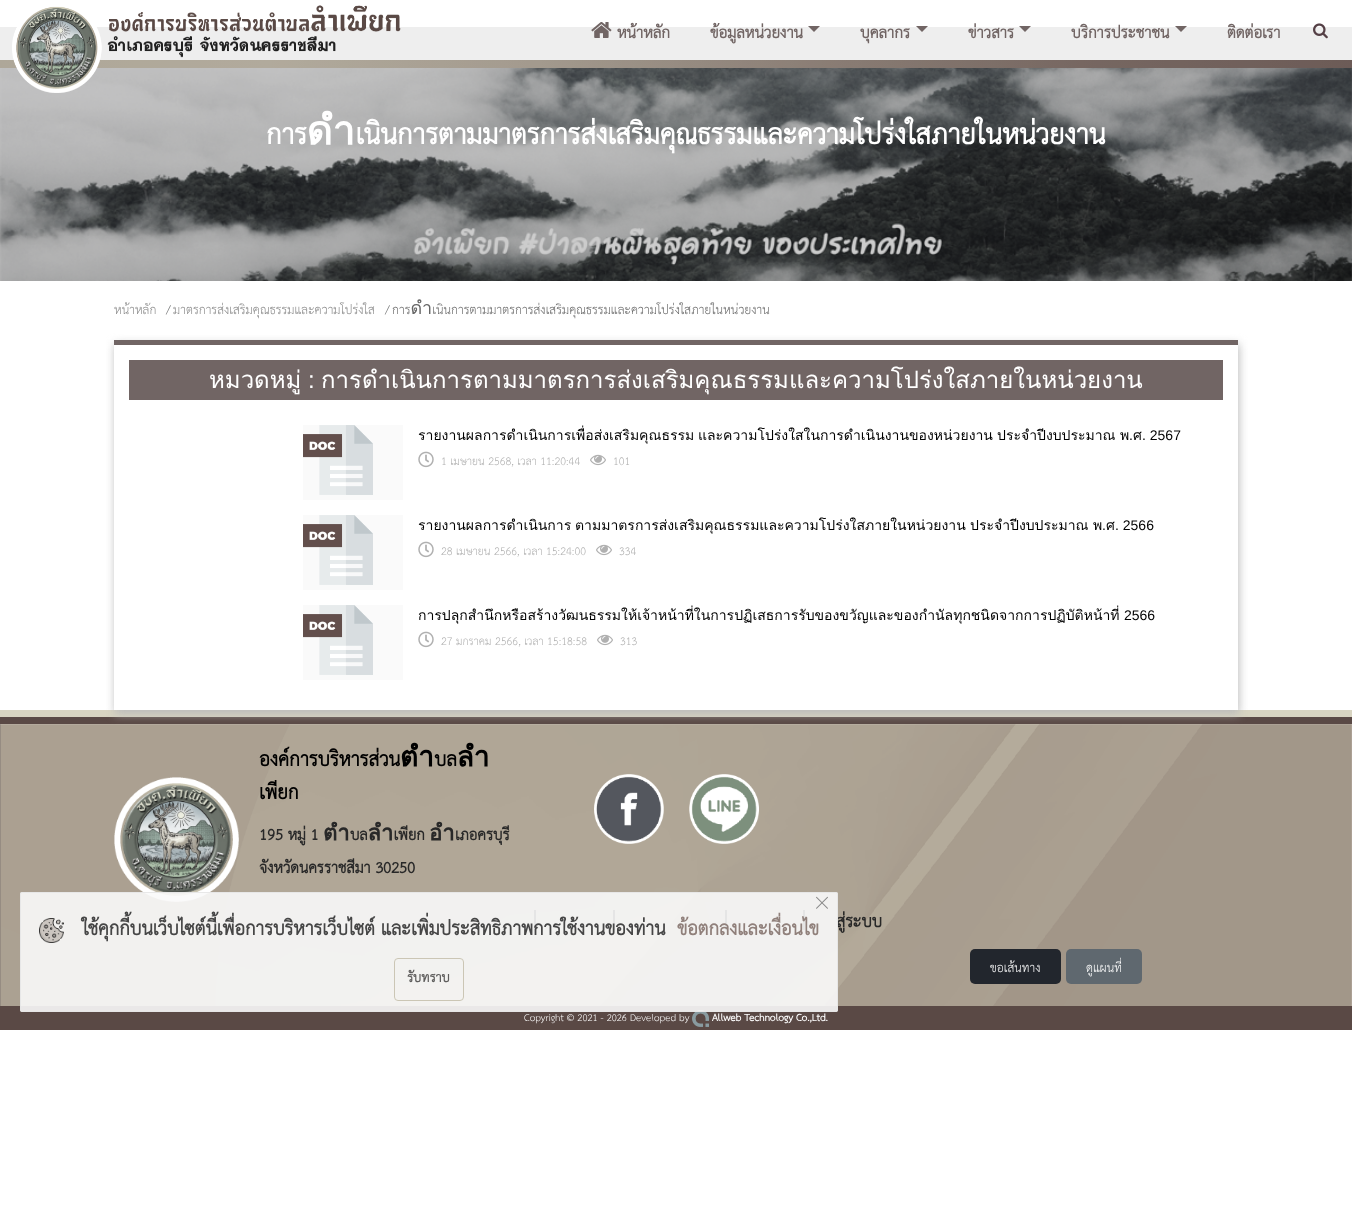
<!DOCTYPE html>
<meta charset="utf-8">
<style>body { margin: 0 } canvas { display: block }</style>
<canvas id="canvas" width="1352" height="1228"></canvas>
<img id="img1" src="img_04.png" hidden>
<img id="img2" src="img_05.png" hidden>
<img id="img3" src="img_01.png" hidden>
<img id="img4" src="img_02.png" hidden>
<img id="img5" src="img_03.png" hidden>
<img id="img6" src="img_09.png" hidden>
<img id="img7" src="img_06.png" hidden>
<img id="img8" src="img_07.png" hidden>
<img id="img9" src="img_08.png" hidden>
<img id="img10" src="img_10.png" hidden>
<img id="img11" src="img_11.png" hidden>
<img id="img12" src="img_12.png" hidden>
<img id="img13" src="img_13.png" hidden>
<img id="img14" src="img_14.png" hidden>
<img id="img15" src="img_15.png" hidden>
<script>
window.onload = function () {
	const canvas = document.getElementById("canvas");
	const ctx = canvas.getContext("2d");
	ctx.miterLimit = 4;
	ctx.fontKerning = "normal";
	function txt(s, x, y) {
		ctx.fillText(s, x, y);
	}
	function fill(x, y, w, h) {
		ctx.fillRect(x, y, w, h);
	}
	function round(x, y, w, h, r) {
		ctx.beginPath();
		ctx.roundRect(x, y, w, h, r);
		ctx.fill();
	}
	function img(id, x, y, w, h) {
		ctx.drawImage(document.getElementById(id), x, y, w, h);
	}

	ctx.fillStyle = "#FFFFFF";
	fill(0, 0, 1352, 1228);
	ctx.fillStyle = "#EEEEEE";
	fill(0, 27, 1352, 33);
	img("img1", 0, 60, 1352, 8);
	img("img2", 0, 68, 1352, 213);
	img("img3", 12, 5, 389, 88);
	img("img4", 591, 22, 21, 16);
	ctx.fillStyle = "#716564";
	ctx.beginPath();
	ctx.moveTo(808, 26);
	ctx.lineTo(820, 26);
	ctx.lineTo(814, 32);
	ctx.closePath();
	ctx.fill();
	ctx.beginPath();
	ctx.moveTo(916, 26);
	ctx.lineTo(928, 26);
	ctx.lineTo(922, 32);
	ctx.closePath();
	ctx.fill();
	ctx.beginPath();
	ctx.moveTo(1019, 26);
	ctx.lineTo(1031, 26);
	ctx.lineTo(1025, 32);
	ctx.closePath();
	ctx.fill();
	ctx.beginPath();
	ctx.moveTo(1175, 26);
	ctx.lineTo(1187, 26);
	ctx.lineTo(1181, 32);
	ctx.closePath();
	ctx.fill();
	img("img5", 1313, 23, 15, 16);
	ctx.fillStyle = "#D8D4C1";
	fill(0, 710, 1352, 7);
	img("img6", 0, 724, 1352, 282);
	ctx.fillStyle = "#5A4945";
	fill(0, 717, 1352, 7);
	ctx.save();
	ctx.beginPath();
	ctx.moveTo(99, 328);
	ctx.lineTo(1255, 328);
	ctx.lineTo(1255, 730);
	ctx.lineTo(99, 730);
	ctx.closePath();
	ctx.moveTo(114, 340);
	ctx.lineTo(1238, 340);
	ctx.lineTo(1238, 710);
	ctx.lineTo(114, 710);
	ctx.closePath();
	ctx.clip("evenodd");
	ctx.fillStyle = "#BBBBBB";
	ctx.filter = "blur(5px)";
	ctx.beginPath();
	ctx.rect(115, 344, 1124, 370);
	ctx.fill();
	ctx.filter = "none";
	ctx.restore();
	ctx.fillStyle = "#716564";
	fill(114, 340, 1124, 5);
	fill(129, 360, 1094, 40);
	ctx.fillStyle = "#FAFAFA";
	fill(303, 425, 100, 75);
	img("img7", 303, 425, 70, 70);
	img("img8", 418, 451, 16, 17);
	img("img9", 590, 454, 16, 12);
	fill(303, 515, 100, 75);
	img("img7", 303, 515, 70, 70);
	img("img8", 418, 541, 16, 17);
	img("img9", 596, 544, 16, 12);
	fill(303, 605, 100, 75);
	img("img7", 303, 605, 70, 70);
	img("img8", 418, 631, 16, 17);
	img("img9", 597, 634, 16, 12);
	img("img10", 114, 777, 125, 125);
	img("img11", 594, 774, 70, 70);
	img("img12", 689, 774, 70, 70);
	ctx.fillStyle = "#282828";
	fill(534, 910, 2, 20);
	fill(613, 910, 2, 20);
	fill(725, 910, 2, 20);
	fill(803, 910, 2, 20);
	ctx.fillStyle = "#22262D";
	round(970, 949, 91, 35, 5);
	ctx.fillStyle = "#5F686F";
	round(1066, 949, 76, 35, 5);
	ctx.fillStyle = "#5A4945";
	fill(0, 1006, 1352, 24);
	img("img13", 692, 1009, 17, 18);
	ctx.font = "bold 22.5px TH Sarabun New";
	ctx.fillStyle = "#716564";
	txt("หน้าหลัก", 617, 38);
	txt("ข้อมูลหน่วยงาน", 710, 38);
	txt("บุคลากร", 860, 38);
	txt("ข่าวสาร", 968, 38);
	txt("บริการประชาชน", 1071, 38);
	txt("ติดต่อเรา", 1227, 38);
	ctx.font = "bold 40px TH Sarabun New";
	ctx.fillStyle = "#FFFFFF";
	txt("การดำเนินการตามมาตรการส่งเสริมคุณธรรมและความโปร่งใสภายในหน่วยงาน", 266, 144);
	ctx.font = "18px TH Sarabun New";
	ctx.fillStyle = "#888888";
	txt("หน้าหลัก", 114, 314);
	ctx.fillStyle = "#737475";
	txt("/", 166, 314);
	ctx.fillStyle = "#888888";
	txt("มาตรการส่งเสริมคุณธรรมและความโปร่งใส", 173, 314);
	ctx.fillStyle = "#737475";
	txt("/", 385, 314);
	ctx.fillStyle = "#666666";
	txt("การดำเนินการตามมาตรการส่งเสริมคุณธรรมและความโปร่งใสภายในหน่วยงาน", 392, 314);
	ctx.font = "24px Loma";
	ctx.fillStyle = "#FFFFFF";
	txt("หมวดหมู่", 209, 388);
	ctx.font = "24px Liberation Sans";
	txt(":", 308, 388);
	ctx.font = "24px Loma";
	txt("การดำเนินการตามมาตรการส่งเสริมคุณธรรมและความโปร่งใสภายในหน่วยงาน", 321, 388);
	ctx.font = "14px Loma";
	ctx.fillStyle = "#000000";
	txt("รายงานผลการดำเนินการเพื่อส่งเสริมคุณธรรม", 418, 440);
	txt("และความโปร่งใสในการดำเนินงานของหน่วยงาน", 698, 440);
	txt("ประจำปีงบประมาณ", 997, 440);
	txt("พ", 1120, 440);
	ctx.font = "14px Liberation Sans";
	txt(".", 1129, 440);
	ctx.font = "14px Loma";
	txt("ศ", 1133, 440);
	ctx.font = "14px Liberation Sans";
	txt(". 2567", 1142, 440);
	ctx.font = "16px TH Sarabun New";
	ctx.fillStyle = "#B0B0B0";
	txt("1 เมษายน 2568, เวลา 11:20:44", 441, 465);
	txt("101", 613, 465);
	ctx.font = "14px Loma";
	ctx.fillStyle = "#000000";
	txt("รายงานผลการดำเนินการ", 418, 530);
	txt("ตามมาตรการส่งเสริมคุณธรรมและความโปร่งใสภายในหน่วยงาน", 575, 530);
	txt("ประจำปีงบประมาณ", 970, 530);
	txt("พ", 1093, 530);
	ctx.font = "14px Liberation Sans";
	txt(".", 1102, 530);
	ctx.font = "14px Loma";
	txt("ศ", 1106, 530);
	ctx.font = "14px Liberation Sans";
	txt(". 2566", 1115, 530);
	ctx.font = "16px TH Sarabun New";
	ctx.fillStyle = "#B0B0B0";
	txt("28 เมษายน 2566, เวลา 15:24:00", 441, 555);
	txt("334", 619, 555);
	ctx.font = "14px Loma";
	ctx.fillStyle = "#000000";
	txt("การปลุกสำนึกหรือสร้างวัฒนธรรมให้เจ้าหน้าที่ในการปฏิเสธการรับของขวัญและของกำนัลทุกชนิดจากการปฏิบัติหน้าที่", 418, 620);
	ctx.font = "14px Liberation Sans";
	txt("2566", 1124, 620);
	ctx.font = "16px TH Sarabun New";
	ctx.fillStyle = "#B0B0B0";
	txt("27 มกราคม 2566, เวลา 15:18:58", 441, 645);
	txt("313", 620, 645);
	ctx.font = "bold 28px TH Sarabun New";
	ctx.fillStyle = "#000000";
	txt("องค์การบริหารส่วนตำบลลำ", 259, 766);
	txt("เพียก", 259, 799);
	ctx.font = "bold 22px TH Sarabun New";
	ctx.fillStyle = "#282828";
	txt("195 หมู่ 1 ตำบลลำเพียก อำเภอครบุรี", 259, 840);
	txt("จังหวัดนครราชสีมา 30250", 259, 873);
	ctx.font = "bold 24px TH Sarabun New";
	txt("สู่ระบบ", 836, 927);
	ctx.font = "18px TH Sarabun New";
	ctx.fillStyle = "#FFFFFF";
	txt("ขอเส้นทาง", 990, 972);
	txt("ดูแผนที่", 1086, 972);
	ctx.font = "14px TH Sarabun New";
	txt("Copyright © 2021 - 2026 Developed by", 524, 1021);
	ctx.font = "bold 14px TH Sarabun New";
	txt("Allweb Technology Co.,Ltd.", 712, 1021);
	ctx.fillStyle = "rgba(250, 250, 250, 0.9)";
	round(20, 892, 818, 120, 2);
	ctx.beginPath();
	ctx.roundRect(20.5, 892.5, 817, 119, 1.5);
	ctx.strokeStyle = "rgba(229, 229, 229, 0.9)";
	ctx.stroke();
	img("img14", 816, 896, 12, 13);
	img("img15", 39, 918, 25, 25);
	ctx.font = "bold 27.2px TH Sarabun New";
	ctx.fillStyle = "#464646";
	txt("ใช้คุกกี้บนเว็บไซต์นี้เพื่อการบริหารเว็บไซต์ และเพิ่มประสิทธิภาพการใช้งานของท่าน", 82, 935);
	ctx.fillStyle = "#90807B";
	txt("ข้อตกลงและเงื่อนไข", 677, 935);
	ctx.beginPath();
	ctx.roundRect(394.5, 958.5, 69, 42, 3.5);
	ctx.strokeStyle = "rgba(199, 193, 174, 0.9)";
	ctx.stroke();
	ctx.font = "bold 19px TH Sarabun New";
	ctx.fillStyle = "#5E5D5C";
	txt("รับทราบ", 407, 982);
};
</script>
